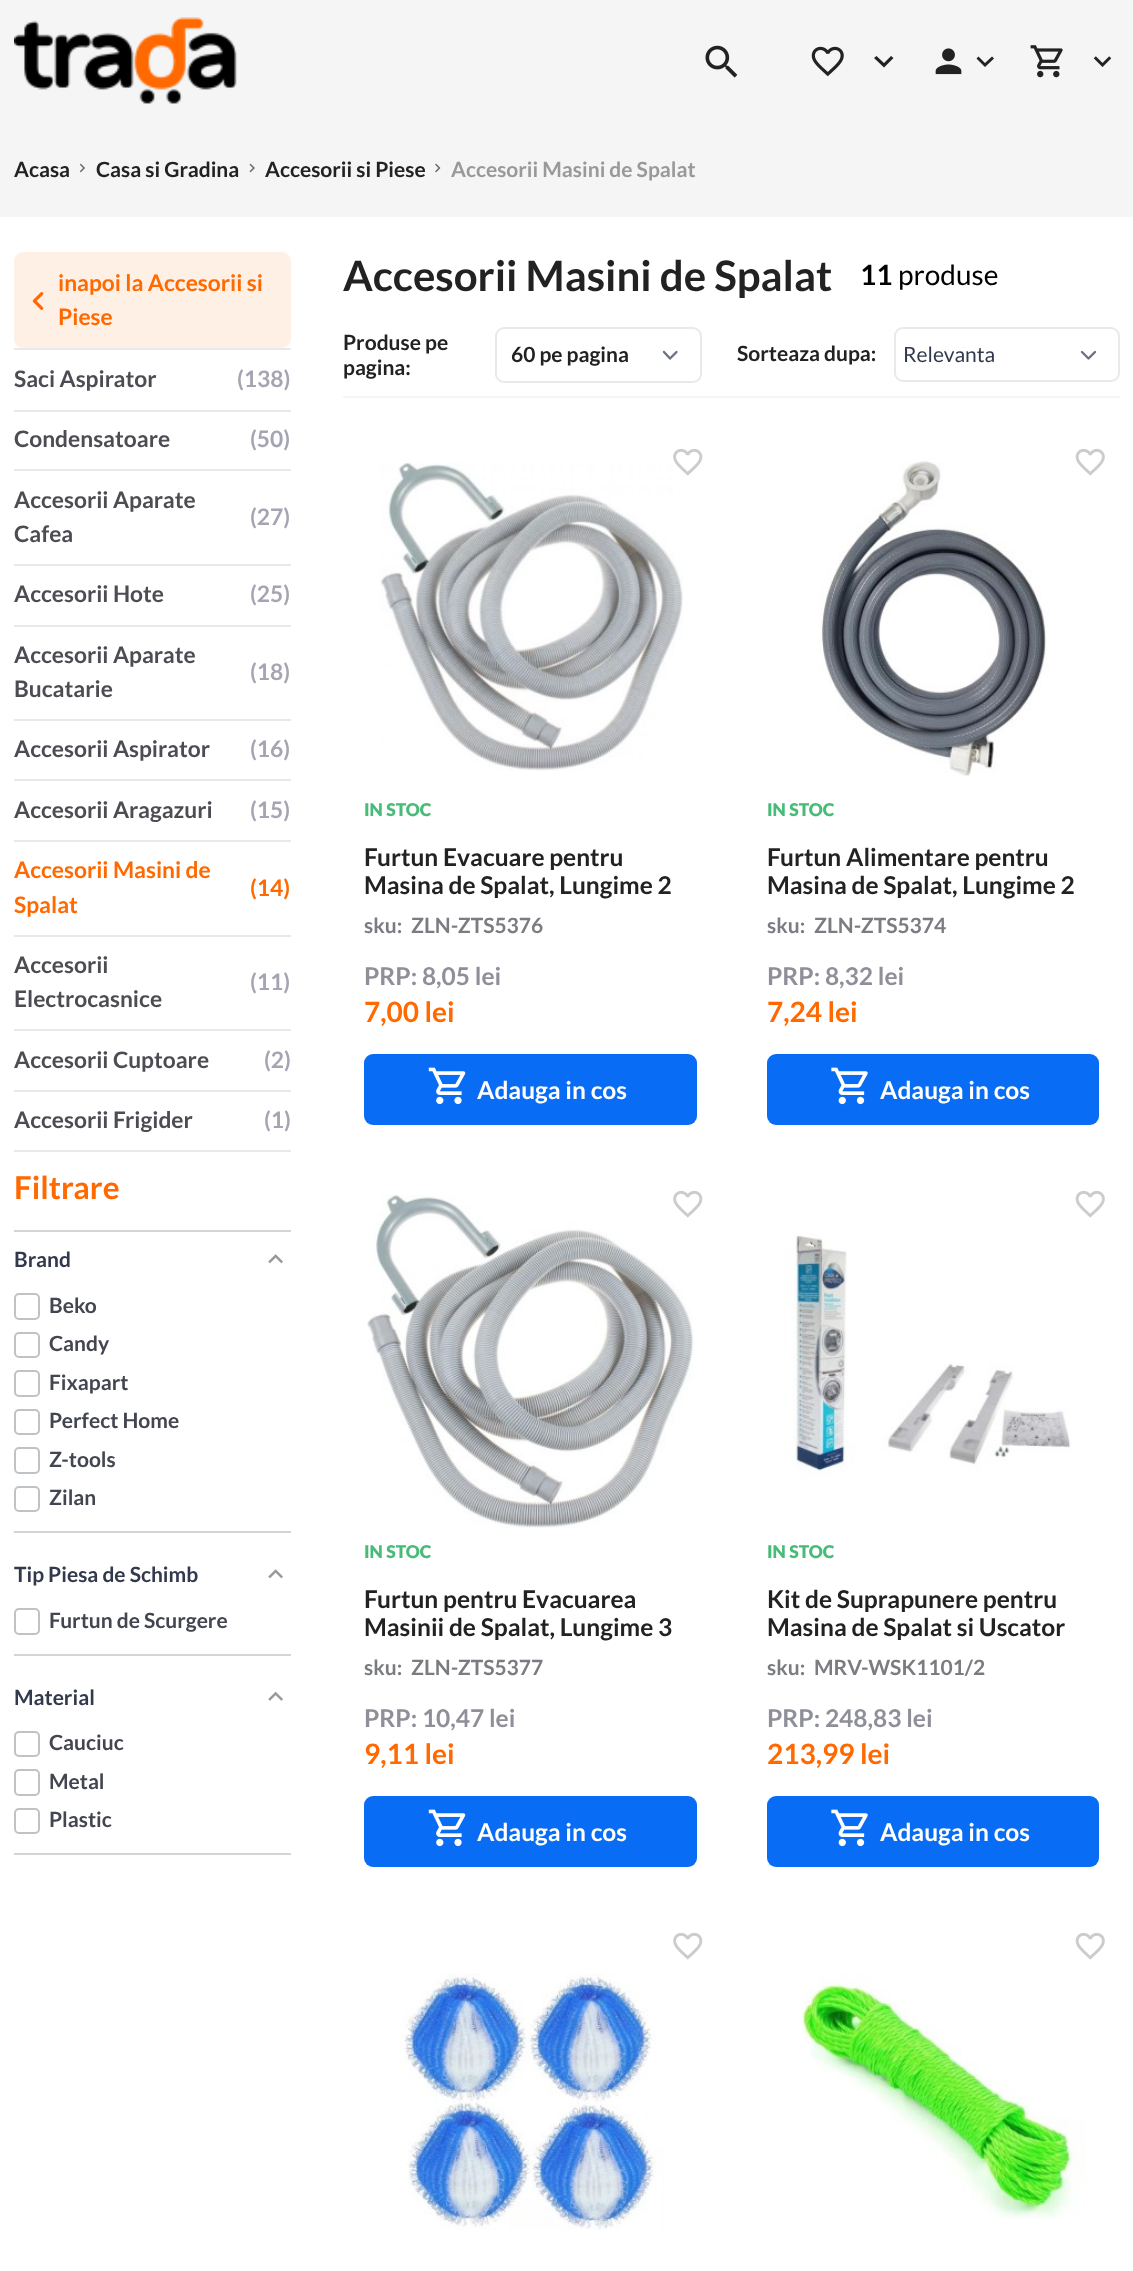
<!DOCTYPE html>
<meta charset="utf-8">
<style>body { margin: 0 } canvas { display: block }</style>
<canvas id="canvas" width="1133" height="2271"></canvas>
<img id="img1" src="img_01.png" hidden>
<img id="img2" src="img_02.png" hidden>
<img id="img3" src="img_03.png" hidden>
<img id="img4" src="img_04.png" hidden>
<img id="img5" src="img_05.png" hidden>
<img id="img6" src="img_06.png" hidden>
<img id="img7" src="img_07.png" hidden>
<img id="img8" src="img_08.png" hidden>
<img id="img9" src="img_09.png" hidden>
<img id="img10" src="img_10.png" hidden>
<img id="img11" src="img_11.png" hidden>
<img id="img12" src="img_12.png" hidden>
<img id="img13" src="img_13.png" hidden>
<img id="img14" src="img_14.png" hidden>
<img id="img15" src="img_15.png" hidden>
<img id="img16" src="img_16.png" hidden>
<img id="img17" src="img_17.png" hidden>
<img id="img18" src="img_18.png" hidden>
<img id="img19" src="img_20.png" hidden>
<img id="img20" src="img_19.png" hidden>
<img id="img21" src="img_21.png" hidden>
<img id="img22" src="img_22.png" hidden>
<img id="img23" src="img_23.png" hidden>
<script>
window.onload = function () {
	const canvas = document.getElementById("canvas");
	const ctx = canvas.getContext("2d");
	ctx.miterLimit = 4;
	ctx.fontKerning = "normal";
	function txt(s, x, y) {
		ctx.fillText(s, x, y);
	}
	function fill(x, y, w, h) {
		ctx.fillRect(x, y, w, h);
	}
	function round(x, y, w, h, r) {
		ctx.beginPath();
		ctx.roundRect(x, y, w, h, r);
		ctx.fill();
	}
	function img(id, x, y, w, h) {
		ctx.drawImage(document.getElementById(id), x, y, w, h);
	}

	ctx.fillStyle = "#FFFFFF";
	fill(0, 0, 1133, 2271);
	ctx.fillStyle = "#F5F5F5";
	fill(0, 0, 1133, 217);
	img("img1", 14, 17, 223, 87);
	img("img2", 705, 45, 33, 33);
	img("img3", 811, 46, 33, 31);
	ctx.fillStyle = "#222222";
	ctx.beginPath();
	ctx.moveTo(891, 56);
	ctx.lineTo(884, 63);
	ctx.lineTo(876.5, 56);
	ctx.lineTo(874, 58);
	ctx.lineTo(884, 67.5);
	ctx.lineTo(893.5, 58);
	ctx.closePath();
	ctx.fill();
	img("img4", 935, 48, 27, 27);
	ctx.beginPath();
	ctx.moveTo(992, 56.5);
	ctx.lineTo(985, 63);
	ctx.lineTo(978.5, 56.5);
	ctx.lineTo(976.5, 58.5);
	ctx.lineTo(985, 67);
	ctx.lineTo(994, 58.5);
	ctx.closePath();
	ctx.fill();
	img("img5", 1030, 45, 33, 33);
	img("img6", 1093, 56, 19, 11);
	img("img7", 79, 163, 6, 10);
	img("img8", 249, 163, 6, 10);
	img("img9", 435, 163, 6, 10);
	ctx.fillStyle = "#FFF0E5";
	round(14, 252, 277, 96, 9);
	img("img10", 32, 292, 12, 18);
	ctx.fillStyle = "#E9E9E9";
	fill(14, 348, 277, 2);
	fill(14, 410, 277, 2);
	fill(14, 469, 277, 2);
	fill(14, 564, 277, 2);
	fill(14, 625, 277, 2);
	fill(14, 719, 277, 2);
	fill(14, 779, 277, 2);
	fill(14, 840, 277, 2);
	fill(14, 935, 277, 2);
	fill(14, 1029, 277, 2);
	fill(14, 1090, 277, 2);
	fill(14, 1150, 277, 2);
	ctx.fillStyle = "#D4D4D4";
	fill(14, 1230, 277, 2);
	fill(14, 1531, 277, 2);
	img("img11", 268, 1254, 15, 10);
	ctx.beginPath();
	ctx.roundRect(15, 1294, 24, 25, 4);
	ctx.strokeStyle = "#C0C3C6";
	ctx.lineWidth = 2;
	ctx.stroke();
	ctx.beginPath();
	ctx.roundRect(15, 1333, 24, 24, 4);
	ctx.stroke();
	ctx.beginPath();
	ctx.roundRect(15, 1371, 24, 25, 4);
	ctx.stroke();
	ctx.beginPath();
	ctx.roundRect(15, 1410, 24, 24, 4);
	ctx.stroke();
	ctx.beginPath();
	ctx.roundRect(15, 1448, 24, 25, 4);
	ctx.stroke();
	ctx.beginPath();
	ctx.roundRect(15, 1487, 24, 24, 4);
	ctx.stroke();
	fill(14, 1654, 277, 2);
	img("img11", 268, 1569, 15, 10);
	ctx.beginPath();
	ctx.roundRect(15, 1609, 24, 25, 4);
	ctx.stroke();
	fill(14, 1853, 277, 2);
	img("img12", 268, 1691, 15, 10);
	ctx.beginPath();
	ctx.roundRect(15, 1732, 24, 24, 4);
	ctx.stroke();
	ctx.beginPath();
	ctx.roundRect(15, 1770, 24, 25, 4);
	ctx.stroke();
	ctx.beginPath();
	ctx.roundRect(15, 1809, 24, 24, 4);
	ctx.stroke();
	ctx.fillStyle = "#F5F5F5";
	fill(343, 396, 777, 2);
	ctx.beginPath();
	ctx.moveTo(664, 352);
	ctx.lineTo(670, 358.5);
	ctx.lineTo(676.5, 352);
	ctx.strokeStyle = "#6B7280";
	ctx.lineWidth = 2.4;
	ctx.lineCap = "round";
	ctx.lineJoin = "round";
	ctx.stroke();
	ctx.beginPath();
	ctx.roundRect(496, 328, 205, 54, 8);
	ctx.strokeStyle = "#E9E9E9";
	ctx.lineWidth = 2;
	ctx.lineJoin = "miter";
	ctx.stroke();
	ctx.beginPath();
	ctx.moveTo(1082, 352);
	ctx.lineTo(1088.5, 358.5);
	ctx.lineTo(1095, 352);
	ctx.strokeStyle = "#6B7280";
	ctx.lineWidth = 2.4;
	ctx.lineJoin = "round";
	ctx.stroke();
	ctx.beginPath();
	ctx.roundRect(895, 328, 224, 53, 8);
	ctx.strokeStyle = "#E9E9E9";
	ctx.lineWidth = 2;
	ctx.lineJoin = "miter";
	ctx.stroke();
	img("img13", 380, 462, 303, 309);
	img("img14", 673, 448, 30, 28);
	ctx.fillStyle = "#086CF4";
	round(364, 1054, 333, 71, 9);
	img("img15", 428, 1067, 38, 38);
	img("img16", 820, 458, 229, 318);
	img("img17", 1075, 448, 30, 28);
	round(767, 1054, 332, 71, 9);
	img("img18", 831, 1067, 37, 38);
	img("img19", 367, 1195, 327, 333);
	img("img20", 673, 1190, 30, 28);
	round(364, 1796, 333, 71, 9);
	img("img15", 428, 1809, 38, 38);
	img("img17", 1075, 1190, 30, 28);
	img("img21", 784, 1233, 287, 246);
	round(767, 1796, 332, 71, 9);
	img("img18", 831, 1809, 37, 38);
	img("img20", 673, 1932, 30, 28);
	img("img22", 400, 1973, 265, 257);
	img("img17", 1075, 1932, 30, 28);
	img("img23", 801, 1973, 285, 246);
	ctx.font = "bold 21px Lato";
	ctx.fillStyle = "#222222";
	txt("Acasa", 14, 177);
	txt("Casa si Gradina", 96, 177);
	txt("Accesorii si Piese", 265, 177);
	ctx.fillStyle = "#999999";
	txt("Accesorii Masini de Spalat", 451, 177);
	ctx.font = "bold 22.75px Lato";
	ctx.fillStyle = "#FF6900";
	txt("inapoi la Accesorii si", 58, 291);
	txt("Piese", 58, 325);
	ctx.fillStyle = "#4C4C53";
	txt("Saci Aspirator", 14, 387);
	ctx.fillStyle = "#A4A4B3";
	txt("(138)", 237, 387);
	ctx.fillStyle = "#4C4C53";
	txt("Condensatoare", 14, 447);
	ctx.fillStyle = "#A4A4B3";
	txt("(50)", 250, 447);
	ctx.fillStyle = "#4C4C53";
	txt("Accesorii Aparate", 14, 508);
	txt("Cafea", 14, 542);
	ctx.fillStyle = "#A4A4B3";
	txt("(27)", 250, 525);
	ctx.fillStyle = "#4C4C53";
	txt("Accesorii Hote", 14, 602);
	ctx.fillStyle = "#A4A4B3";
	txt("(25)", 250, 602);
	ctx.fillStyle = "#4C4C53";
	txt("Accesorii Aparate", 14, 663);
	txt("Bucatarie", 14, 697);
	ctx.fillStyle = "#A4A4B3";
	txt("(18)", 250, 680);
	ctx.fillStyle = "#4C4C53";
	txt("Accesorii Aspirator", 14, 757);
	ctx.fillStyle = "#A4A4B3";
	txt("(16)", 250, 757);
	ctx.fillStyle = "#4C4C53";
	txt("Accesorii Aragazuri", 14, 818);
	ctx.fillStyle = "#A4A4B3";
	txt("(15)", 250, 818);
	ctx.fillStyle = "#FF6900";
	txt("Accesorii Masini de", 14, 878);
	txt("Spalat", 14, 913);
	txt("(14)", 250, 896);
	ctx.fillStyle = "#4C4C53";
	txt("Accesorii", 14, 973);
	txt("Electrocasnice", 14, 1007);
	ctx.fillStyle = "#A4A4B3";
	txt("(11)", 250, 990);
	ctx.fillStyle = "#4C4C53";
	txt("Accesorii Cuptoare", 14, 1068);
	ctx.fillStyle = "#A4A4B3";
	txt("(2)", 264, 1068);
	ctx.fillStyle = "#4C4C53";
	txt("Accesorii Frigider", 14, 1128);
	ctx.fillStyle = "#A4A4B3";
	txt("(1)", 264, 1128);
	ctx.font = "bold 31.5px Lato";
	ctx.fillStyle = "#FF6900";
	txt("Filtrare", 14, 1199);
	ctx.font = "bold 21px Lato";
	ctx.fillStyle = "#32394D";
	txt("Brand", 14, 1267);
	ctx.fillStyle = "#434550";
	txt("Beko", 49, 1313);
	txt("Candy", 49, 1351);
	txt("Fixapart", 49, 1390);
	txt("Perfect Home", 49, 1428);
	txt("Z-tools", 49, 1467);
	txt("Zilan", 49, 1505);
	ctx.fillStyle = "#32394D";
	txt("Tip Piesa de Schimb", 14, 1582);
	ctx.fillStyle = "#434550";
	txt("Furtun de Scurgere", 49, 1628);
	ctx.fillStyle = "#32394D";
	txt("Material", 14, 1705);
	ctx.fillStyle = "#434550";
	txt("Cauciuc", 49, 1750);
	txt("Metal", 49, 1789);
	txt("Plastic", 49, 1827);
	ctx.font = "bold 42px Lato";
	ctx.fillStyle = "#222222";
	txt("Accesorii Masini de Spalat", 343, 291);
	ctx.font = "bold 28px Lato";
	ctx.fillStyle = "#000000";
	txt("11", 860, 285);
	ctx.font = "28px Lato";
	txt("produse", 898, 285);
	ctx.font = "bold 21px Lato";
	ctx.fillStyle = "#222222";
	txt("Produse pe", 343, 350);
	txt("pagina:", 343, 375);
	txt("60 pe pagina", 511, 362);
	txt("Sorteaza dupa:", 737, 361);
	ctx.font = "21px Lato";
	ctx.fillStyle = "#32394D";
	txt("Relevanta", 903, 362);
	ctx.font = "900 17.5px Lato";
	ctx.fillStyle = "#48BB78";
	txt("IN STOC", 364, 816);
	ctx.font = "bold 24.5px Lato";
	ctx.fillStyle = "#222222";
	txt("Furtun Evacuare pentru", 364, 866);
	txt("Masina de Spalat, Lungime 2", 364, 894);
	ctx.font = "bold 21px Lato";
	ctx.fillStyle = "#7A7C81";
	txt("sku:", 364, 933);
	txt("ZLN-ZTS5376", 411, 933);
	ctx.font = "bold 24.5px Lato";
	ctx.fillStyle = "#8F8F9A";
	txt("PRP: 8,05 lei", 364, 985);
	ctx.font = "bold 28px Lato";
	ctx.fillStyle = "#FF6900";
	txt("7,00 lei", 364, 1022);
	ctx.font = "bold 24.5px Lato";
	ctx.fillStyle = "#FFFFFF";
	txt("Adauga in cos", 477, 1099);
	ctx.font = "900 17.5px Lato";
	ctx.fillStyle = "#48BB78";
	txt("IN STOC", 767, 816);
	ctx.font = "bold 24.5px Lato";
	ctx.fillStyle = "#222222";
	txt("Furtun Alimentare pentru", 767, 866);
	txt("Masina de Spalat, Lungime 2", 767, 894);
	ctx.font = "bold 21px Lato";
	ctx.fillStyle = "#7A7C81";
	txt("sku:", 767, 933);
	txt("ZLN-ZTS5374", 814, 933);
	ctx.font = "bold 24.5px Lato";
	ctx.fillStyle = "#8F8F9A";
	txt("PRP: 8,32 lei", 767, 985);
	ctx.font = "bold 28px Lato";
	ctx.fillStyle = "#FF6900";
	txt("7,24 lei", 767, 1022);
	ctx.font = "bold 24.5px Lato";
	ctx.fillStyle = "#FFFFFF";
	txt("Adauga in cos", 880, 1099);
	ctx.font = "900 17.5px Lato";
	ctx.fillStyle = "#48BB78";
	txt("IN STOC", 364, 1558);
	ctx.font = "bold 24.5px Lato";
	ctx.fillStyle = "#222222";
	txt("Furtun pentru Evacuarea", 364, 1608);
	txt("Masinii de Spalat, Lungime 3", 364, 1636);
	ctx.font = "bold 21px Lato";
	ctx.fillStyle = "#7A7C81";
	txt("sku:", 364, 1675);
	txt("ZLN-ZTS5377", 411, 1675);
	ctx.font = "bold 24.5px Lato";
	ctx.fillStyle = "#8F8F9A";
	txt("PRP: 10,47 lei", 364, 1727);
	ctx.font = "bold 28px Lato";
	ctx.fillStyle = "#FF6900";
	txt("9,11 lei", 364, 1764);
	ctx.font = "bold 24.5px Lato";
	ctx.fillStyle = "#FFFFFF";
	txt("Adauga in cos", 477, 1841);
	ctx.font = "900 17.5px Lato";
	ctx.fillStyle = "#48BB78";
	txt("IN STOC", 767, 1558);
	ctx.font = "bold 24.5px Lato";
	ctx.fillStyle = "#222222";
	txt("Kit de Suprapunere pentru", 767, 1608);
	txt("Masina de Spalat si Uscator", 767, 1636);
	ctx.font = "bold 21px Lato";
	ctx.fillStyle = "#7A7C81";
	txt("sku:", 767, 1675);
	txt("MRV-WSK1101/2", 814, 1675);
	ctx.font = "bold 24.5px Lato";
	ctx.fillStyle = "#8F8F9A";
	txt("PRP: 248,83 lei", 767, 1727);
	ctx.font = "bold 28px Lato";
	ctx.fillStyle = "#FF6900";
	txt("213,99 lei", 767, 1764);
	ctx.font = "bold 24.5px Lato";
	ctx.fillStyle = "#FFFFFF";
	txt("Adauga in cos", 880, 1841);
};
</script>
